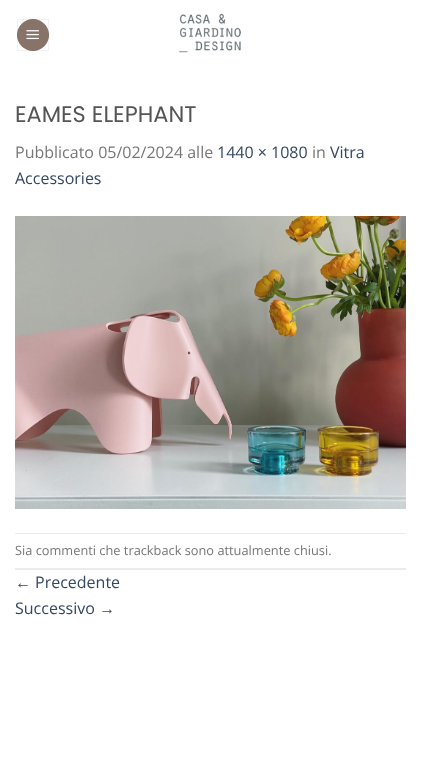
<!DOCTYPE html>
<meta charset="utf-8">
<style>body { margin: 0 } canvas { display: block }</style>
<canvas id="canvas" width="421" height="772"></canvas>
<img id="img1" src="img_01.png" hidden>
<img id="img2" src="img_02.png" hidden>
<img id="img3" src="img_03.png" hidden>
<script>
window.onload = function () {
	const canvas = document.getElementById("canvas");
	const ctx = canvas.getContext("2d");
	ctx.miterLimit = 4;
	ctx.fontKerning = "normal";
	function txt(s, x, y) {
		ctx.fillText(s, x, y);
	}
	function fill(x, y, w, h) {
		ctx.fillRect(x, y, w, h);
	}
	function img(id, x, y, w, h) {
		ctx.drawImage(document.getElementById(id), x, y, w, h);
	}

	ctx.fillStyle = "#FFFFFF";
	fill(0, 0, 421, 772);
	ctx.fillStyle = "#887368";
	ctx.beginPath();
	ctx.arc(33, 35, 16, 0, Math.PI * 2);
	ctx.fill();
	ctx.strokeStyle = "rgba(0, 0, 0, 0.05)";
	ctx.strokeRect(17.5, 19.5, 31, 31);
	img("img1", 26, 30, 13, 10);
	img("img2", 179, 13, 62, 40);
	img("img3", 15, 216, 391, 293);
	ctx.fillStyle = "#ECECEC";
	fill(15, 533, 391, 1);
	fill(15, 568, 391, 2);
	ctx.font = "22.5px Poppins";
	ctx.fillStyle = "#555555";
	txt("EAMES ELEPHANT", 15, 122);
	ctx.font = "16px Open Sans";
	ctx.fillStyle = "#777777";
	txt("Pubblicato 05/02/2024 alle", 15, 158);
	ctx.fillStyle = "#334862";
	txt("1440 × 1080", 217, 158);
	ctx.fillStyle = "#777777";
	txt("in", 312, 158);
	ctx.fillStyle = "#334862";
	txt("Vitra", 330, 158);
	txt("Accessories", 15, 184);
	ctx.font = "12.8px Open Sans";
	ctx.fillStyle = "#777777";
	txt("Sia commenti che trackback sono attualmente chiusi.", 15, 555);
	ctx.font = "16px Liberation Sans";
	ctx.fillStyle = "#334862";
	txt("←", 15, 588);
	ctx.font = "16px Open Sans";
	txt("Precedente", 35, 588);
	txt("Successivo", 15, 614);
	ctx.font = "16px Liberation Sans";
	txt("→", 99, 614);
};
</script>
